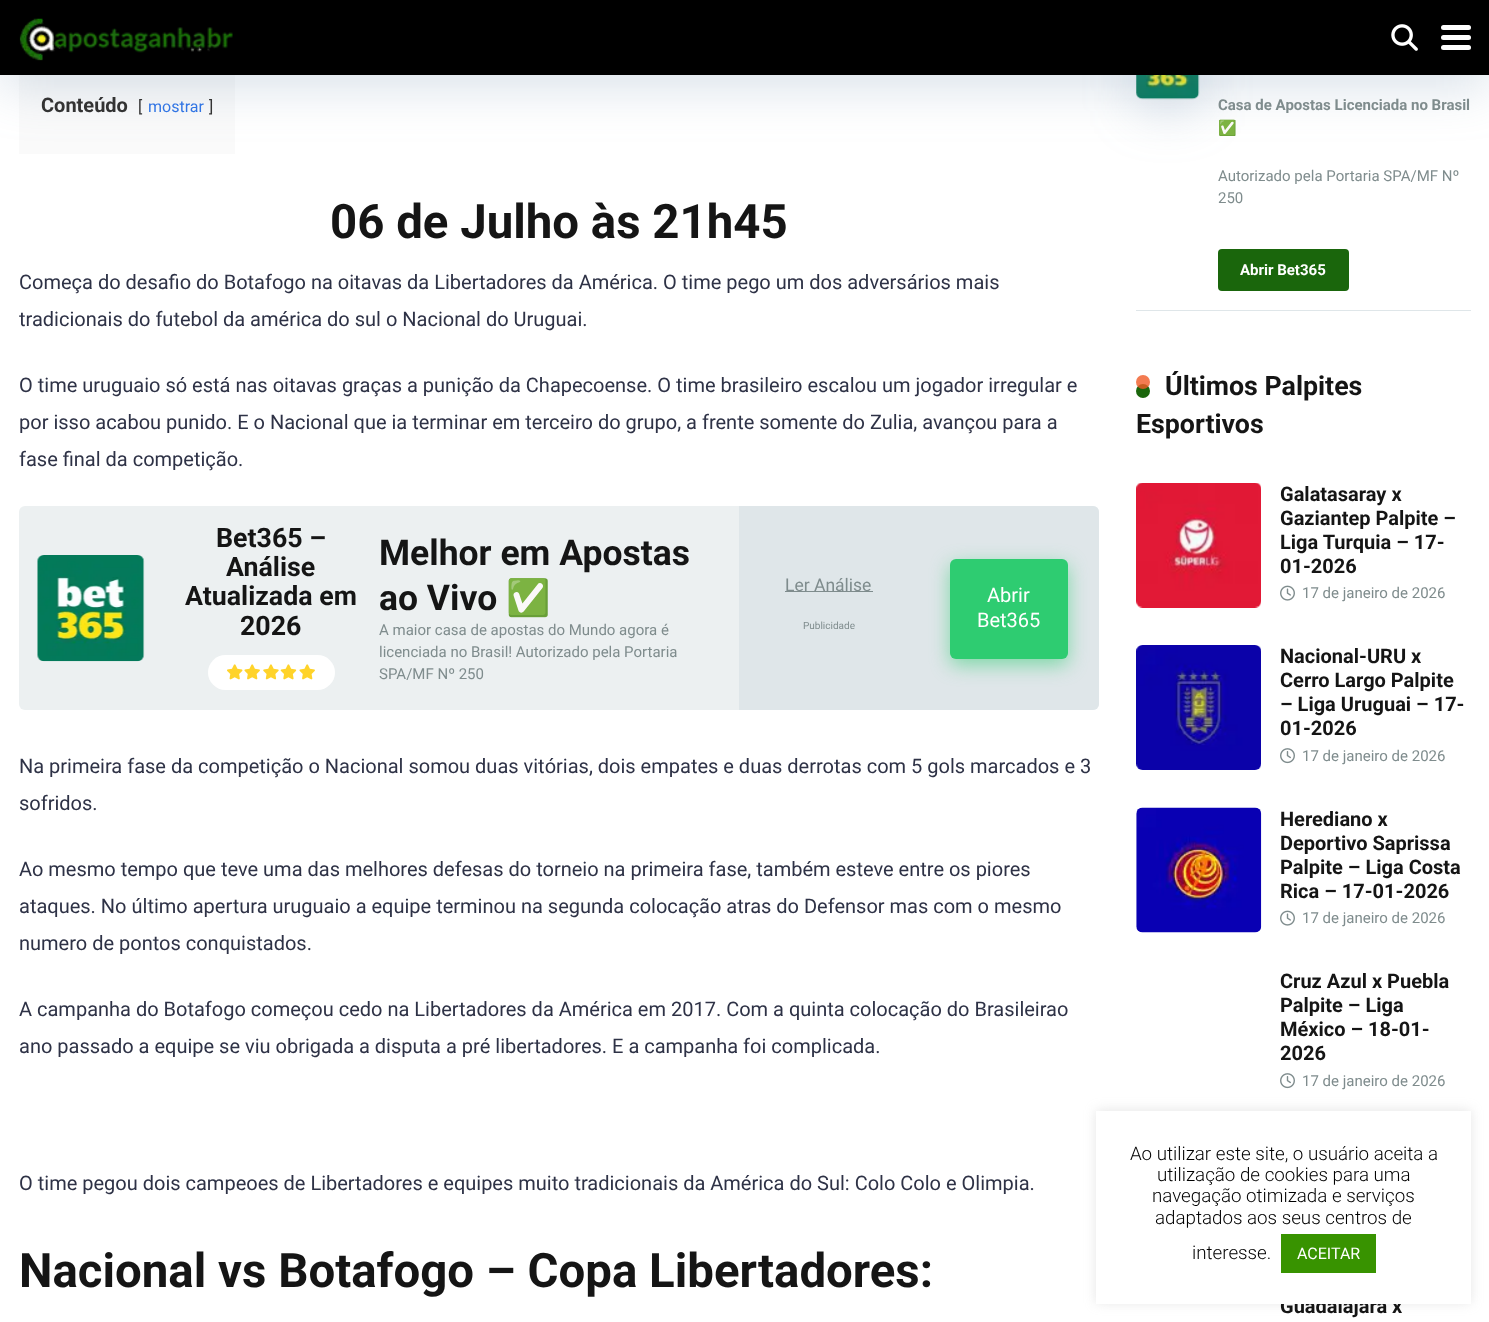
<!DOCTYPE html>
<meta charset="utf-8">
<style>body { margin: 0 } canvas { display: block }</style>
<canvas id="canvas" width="1489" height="1322"></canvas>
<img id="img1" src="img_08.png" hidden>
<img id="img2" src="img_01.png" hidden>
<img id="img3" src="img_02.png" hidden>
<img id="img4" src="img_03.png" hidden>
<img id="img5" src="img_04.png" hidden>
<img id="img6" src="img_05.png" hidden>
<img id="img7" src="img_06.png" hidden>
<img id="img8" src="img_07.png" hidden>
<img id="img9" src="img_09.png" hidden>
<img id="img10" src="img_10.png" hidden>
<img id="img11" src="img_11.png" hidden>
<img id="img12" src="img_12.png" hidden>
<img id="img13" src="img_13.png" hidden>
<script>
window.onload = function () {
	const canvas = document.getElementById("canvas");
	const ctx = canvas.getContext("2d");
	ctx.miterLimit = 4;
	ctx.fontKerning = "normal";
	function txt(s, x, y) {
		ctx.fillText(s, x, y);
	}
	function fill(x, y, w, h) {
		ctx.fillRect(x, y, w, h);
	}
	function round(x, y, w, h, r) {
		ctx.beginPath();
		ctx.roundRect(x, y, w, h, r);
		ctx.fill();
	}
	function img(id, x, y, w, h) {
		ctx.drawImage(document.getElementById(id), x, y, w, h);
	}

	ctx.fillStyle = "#FFFFFF";
	fill(0, 0, 1489, 1322);
	ctx.fillStyle = "#FAFAFA";
	fill(19, 75, 216, 79);
	ctx.fillStyle = "rgba(109, 141, 173, 0.25)";
	ctx.filter = "blur(25px)";
	ctx.beginPath();
	ctx.roundRect(1136, 49, 63, 62, 6);
	ctx.fill();
	ctx.filter = "none";
	img("img1", 1136, 75, 64, 25);
	ctx.filter = "blur(25px)";
	ctx.beginPath();
	ctx.rect(0, 13, 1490, 75);
	ctx.fill();
	ctx.filter = "none";
	ctx.fillStyle = "#000000";
	fill(0, 0, 1489, 75);
	img("img2", 19, 18, 214, 43);
	img("img3", 1391, 24, 27, 27);
	ctx.fillStyle = "#FFFFFF";
	round(1441, 25, 30, 5, 2.5);
	round(1441, 35, 30, 5, 2.5);
	round(1441, 45, 30, 5, 2.5);
	ctx.fillStyle = "#ECF0F1";
	round(19, 506, 1080, 204, 6);
	img("img4", 37, 555, 108, 107);
	ctx.fillStyle = "#FFFFFF";
	round(208, 655, 127, 35, 17.5);
	img("img5", 227, 664, 16, 16);
	img("img6", 244, 664, 16, 16);
	img("img7", 263, 664, 16, 16);
	img("img8", 280, 664, 17, 16);
	img("img6", 299, 664, 16, 16);
	ctx.fillStyle = "#DFE6E9";
	ctx.beginPath();
	ctx.roundRect(739, 506, 360, 204, [0, 6, 6, 0]);
	ctx.fill();
	ctx.fillStyle = "#7F8C8D";
	fill(785, 591, 88, 1);
	ctx.fillStyle = "rgba(46, 204, 113, 0.55)";
	ctx.filter = "blur(9.5px)";
	ctx.beginPath();
	ctx.roundRect(950, 565, 118, 100, 6);
	ctx.fill();
	ctx.filter = "none";
	ctx.fillStyle = "#2ECC71";
	round(950, 559, 118, 100, 6);
	ctx.fillStyle = "#DFE6E9";
	fill(1136, 310, 335, 1);
	ctx.fillStyle = "#1A660C";
	round(1218, 249, 131, 42, 4);
	ctx.beginPath();
	ctx.arc(1143, 391, 7, 0, Math.PI * 2);
	ctx.fill();
	ctx.fillStyle = "rgba(240, 90, 37, 0.8)";
	ctx.beginPath();
	ctx.arc(1143, 382, 7, 0, Math.PI * 2);
	ctx.fill();
	img("img9", 1136, 483, 125, 125);
	img("img10", 1280, 585, 15, 16);
	img("img11", 1136, 645, 125, 125);
	img("img12", 1280, 748, 15, 16);
	img("img13", 1136, 807, 126, 126);
	img("img10", 1280, 910, 15, 16);
	img("img12", 1280, 1073, 15, 16);
	ctx.fillStyle = "rgba(172, 171, 171, 0.3)";
	ctx.filter = "blur(6px)";
	ctx.beginPath();
	ctx.rect(1096, 1110, 375, 193);
	ctx.fill();
	ctx.filter = "none";
	ctx.font = "bold 20px Roboto";
	ctx.fillStyle = "#333333";
	txt("Conteúdo", 41, 112);
	ctx.font = "16px Roboto";
	txt("[", 138, 112);
	ctx.fillStyle = "#3175E4";
	txt("mostrar", 148, 112);
	ctx.fillStyle = "#333333";
	txt("]", 209, 112);
	ctx.font = "bold 47.4px Roboto";
	ctx.fillStyle = "#151515";
	txt("06 de Julho às 21h45", 330, 238);
	ctx.font = "20px Roboto";
	ctx.fillStyle = "#2E3246";
	txt("Começa do desafio do Botafogo na oitavas da Libertadores da América. O time pego um dos adversários mais", 19, 289);
	txt("tradicionais do futebol da américa do sul o Nacional do Uruguai.", 19, 326);
	txt("O time uruguaio só está nas oitavas graças a punição da Chapecoense. O time brasileiro escalou um jogador irregular e", 19, 392);
	txt("por isso acabou punido. E o Nacional que ia terminar em terceiro do grupo, a frente somente do Zulia, avançou para a", 19, 429);
	txt("fase final da competição.", 19, 466);
	ctx.font = "bold 26.75px Roboto";
	ctx.fillStyle = "#151515";
	txt("Bet365 –", 216, 547);
	txt("Análise", 226, 576);
	txt("Atualizada em", 185, 605);
	txt("2026", 240, 635);
	ctx.font = "bold 35.5px Roboto";
	txt("Melhor em Apostas", 379, 565);
	txt("ao Vivo", 379, 610);
	ctx.font = "bold 35.5px Noto Color Emoji";
	txt("✅", 506, 610);
	ctx.font = "15px Roboto";
	ctx.fillStyle = "#7F8C8D";
	txt("A maior casa de apostas do Mundo agora é", 379, 635);
	txt("licenciada no Brasil! Autorizado pela Portaria", 379, 657);
	txt("SPA/MF Nº 250", 379, 679);
	ctx.font = "17.5px Roboto";
	txt("Ler Análise", 785, 591);
	ctx.font = "10px Roboto";
	txt("Publicidade", 803, 629);
	ctx.font = "20px Roboto";
	ctx.fillStyle = "#FFFFFF";
	txt("Abrir", 987, 602);
	txt("Bet365", 977, 627);
	ctx.fillStyle = "#2E3246";
	txt("Na primeira fase da competição o Nacional somou duas vitórias, dois empates e duas derrotas com 5 gols marcados e 3", 19, 773);
	txt("sofridos.", 19, 810);
	txt("Ao mesmo tempo que teve uma das melhores defesas do torneio na primeira fase, também esteve entre os piores", 19, 876);
	txt("ataques. No último apertura uruguaio a equipe terminou na segunda colocação atras do Defensor mas com o mesmo", 19, 913);
	txt("numero de pontos conquistados.", 19, 950);
	txt("A campanha do Botafogo começou cedo na Libertadores da América em 2017. Com a quinta colocação do Brasileirao", 19, 1016);
	txt("ano passado a equipe se viu obrigada a disputa a pré libertadores. E a campanha foi complicada.", 19, 1053);
	txt("O time pegou dois campeoes de Libertadores e equipes muito tradicionais da América do Sul: Colo Colo e Olimpia.", 19, 1190);
	ctx.font = "bold 47.4px Roboto";
	ctx.fillStyle = "#151515";
	txt("Nacional vs Botafogo – Copa Libertadores:", 19, 1287);
	ctx.font = "bold 15px Roboto";
	ctx.fillStyle = "#7F8C8D";
	txt("Casa de Apostas Licenciada no Brasil", 1218, 110);
	ctx.font = "bold 15px Noto Color Emoji";
	txt("✅", 1218, 133);
	ctx.font = "15px Roboto";
	txt("Autorizado pela Portaria SPA/MF Nº", 1218, 181);
	txt("250", 1218, 203);
	ctx.font = "bold 15px Roboto";
	ctx.fillStyle = "#FFFFFF";
	txt("Abrir Bet365", 1240, 275);
	ctx.font = "bold 26.75px Roboto";
	ctx.fillStyle = "#151515";
	txt("Últimos Palpites", 1165, 395);
	txt("Esportivos", 1136, 433);
	ctx.font = "bold 20px Roboto";
	txt("Galatasaray x", 1280, 501);
	txt("Gaziantep Palpite –", 1280, 525);
	txt("Liga Turquia – 17-", 1280, 549);
	txt("01-2026", 1280, 573);
	ctx.font = "15px Roboto";
	ctx.fillStyle = "#7F8C8D";
	txt("17 de janeiro de 2026", 1302, 598);
	ctx.font = "bold 20px Roboto";
	ctx.fillStyle = "#151515";
	txt("Nacional-URU x", 1280, 663);
	txt("Cerro Largo Palpite", 1280, 687);
	txt("– Liga Uruguai – 17-", 1280, 711);
	txt("01-2026", 1280, 735);
	ctx.font = "15px Roboto";
	ctx.fillStyle = "#7F8C8D";
	txt("17 de janeiro de 2026", 1302, 761);
	ctx.font = "bold 20px Roboto";
	ctx.fillStyle = "#151515";
	txt("Herediano x", 1280, 826);
	txt("Deportivo Saprissa", 1280, 850);
	txt("Palpite – Liga Costa", 1280, 874);
	txt("Rica – 17-01-2026", 1280, 898);
	ctx.font = "15px Roboto";
	ctx.fillStyle = "#7F8C8D";
	txt("17 de janeiro de 2026", 1302, 923);
	ctx.font = "bold 20px Roboto";
	ctx.fillStyle = "#151515";
	txt("Cruz Azul x Puebla", 1280, 988);
	txt("Palpite – Liga", 1280, 1012);
	txt("México – 18-01-", 1280, 1036);
	txt("2026", 1280, 1060);
	ctx.font = "15px Roboto";
	ctx.fillStyle = "#7F8C8D";
	txt("17 de janeiro de 2026", 1302, 1086);
	ctx.font = "bold 20px Roboto";
	ctx.fillStyle = "#151515";
	txt("Guadalajara x", 1280, 1313);
	ctx.fillStyle = "#FFFFFF";
	fill(1096, 1111, 375, 193);
	ctx.font = "300 18.75px Roboto";
	ctx.fillStyle = "#000000";
	txt("Ao utilizar este site, o usuário aceita a", 1130, 1160);
	txt("utilização de cookies para uma", 1157, 1181);
	txt("navegação otimizada e serviços", 1152, 1202);
	txt("adaptados aos seus centros de", 1155, 1224);
	txt("interesse.", 1192, 1259);
	ctx.fillStyle = "#389300";
	fill(1281, 1234, 95, 39);
	ctx.font = "16px Roboto";
	ctx.fillStyle = "#FFFFFF";
	txt("ACEITAR", 1297, 1259);
};
</script>
